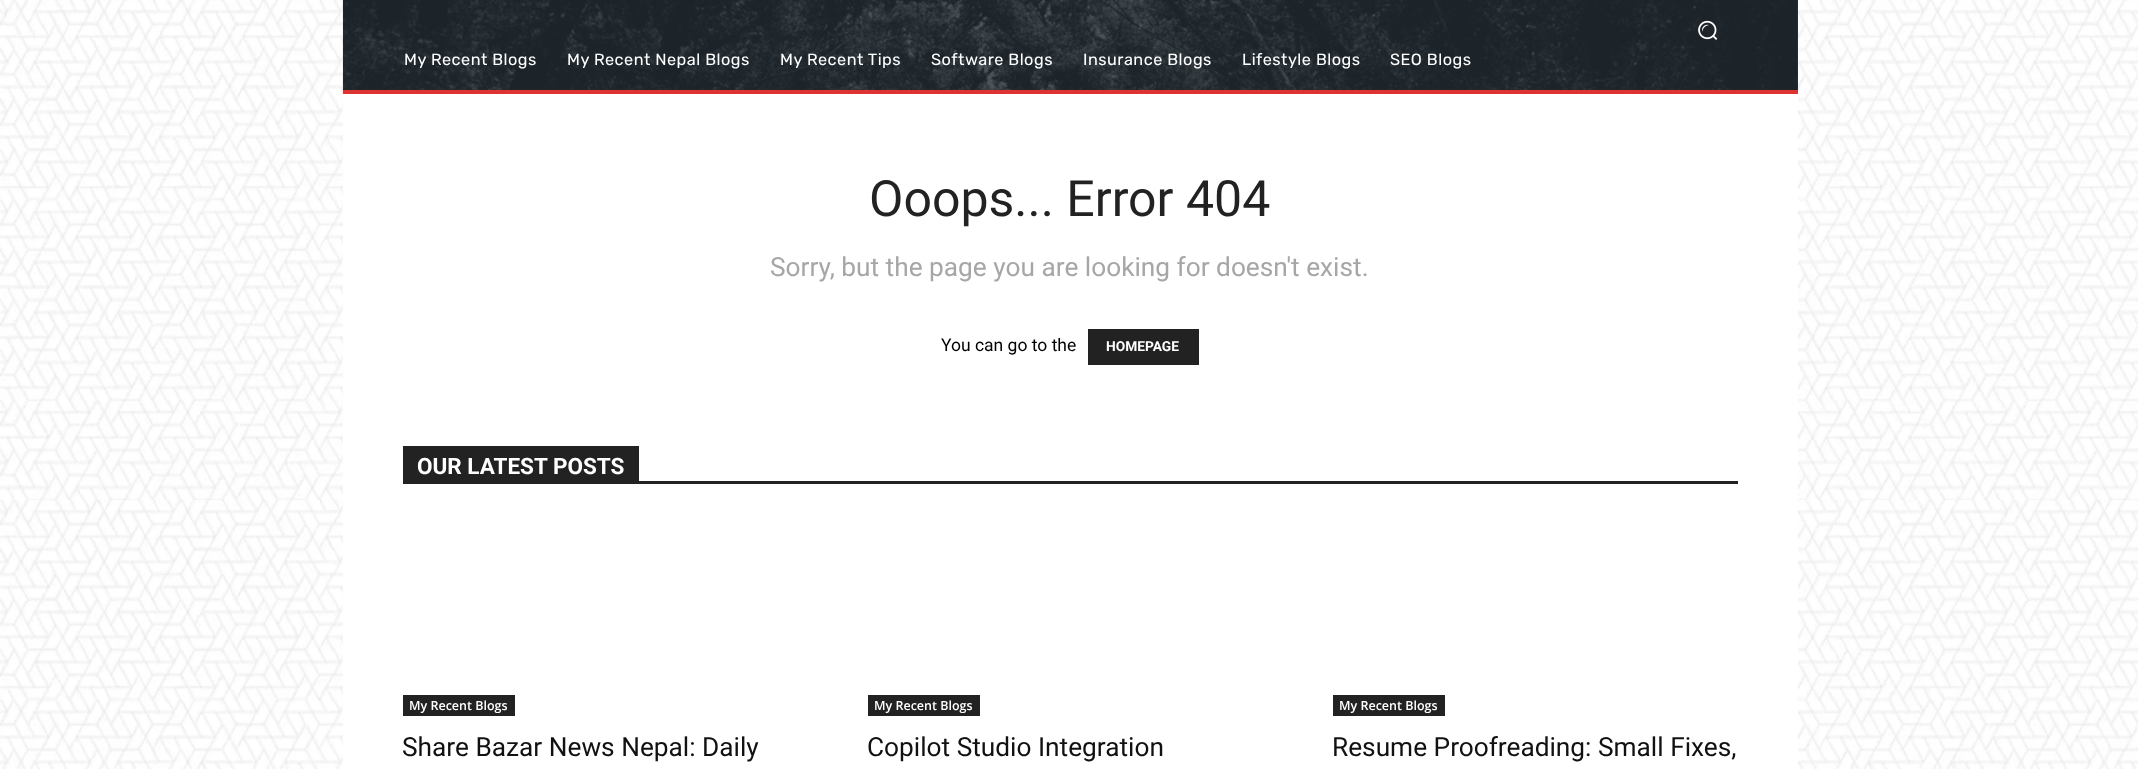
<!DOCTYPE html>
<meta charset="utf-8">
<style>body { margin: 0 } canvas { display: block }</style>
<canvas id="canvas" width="2138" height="769"></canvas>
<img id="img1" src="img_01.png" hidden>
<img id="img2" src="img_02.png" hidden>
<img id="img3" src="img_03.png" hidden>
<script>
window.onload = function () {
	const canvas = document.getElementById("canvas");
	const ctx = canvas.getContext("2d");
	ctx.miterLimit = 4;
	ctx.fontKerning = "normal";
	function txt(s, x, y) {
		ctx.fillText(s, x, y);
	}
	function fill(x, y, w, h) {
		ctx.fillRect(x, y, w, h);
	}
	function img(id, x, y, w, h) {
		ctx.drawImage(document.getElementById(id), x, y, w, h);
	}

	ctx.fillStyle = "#FFFFFF";
	fill(0, 0, 2138, 769);
	img("img1", 0, 0, 2138, 769);
	ctx.fillStyle = "#232D35";
	fill(343, 0, 1455, 90);
	img("img2", 342, 0, 1455, 90);
	img("img3", 1698, 20, 20, 20);
	ctx.fillStyle = "#DD3333";
	fill(343, 90, 1455, 4);
	ctx.fillStyle = "#FFFFFF";
	fill(343, 94, 1455, 675);
	ctx.fillStyle = "#222222";
	fill(1088, 329, 111, 36);
	fill(403, 481, 1335, 3);
	fill(403, 446, 236, 35);
	fill(403, 695, 112, 21);
	fill(868, 695, 112, 21);
	fill(1333, 695, 112, 21);
	ctx.letterSpacing = "0.5px";
	ctx.font = "16.25px Rubik";
	ctx.fillStyle = "#FFFFFF";
	txt("My Recent Blogs", 404, 65);
	txt("My Recent Nepal Blogs", 567, 65);
	txt("My Recent Tips", 780, 65);
	txt("Software Blogs", 931, 65);
	txt("Insurance Blogs", 1083, 65);
	txt("Lifestyle Blogs", 1242, 65);
	txt("SEO Blogs", 1390, 65);
	ctx.letterSpacing = "0px";
	ctx.font = "50px Roboto";
	ctx.fillStyle = "#222222";
	txt("Ooops... Error 404", 869, 216);
	ctx.font = "26.25px Roboto";
	ctx.fillStyle = "#A6A6A6";
	txt("Sorry, but the page you are looking for doesn't exist.", 770, 276);
	ctx.font = "17.5px Roboto";
	ctx.fillStyle = "#000000";
	txt("You can go to the", 941, 351);
	ctx.font = "bold 13.75px Roboto";
	ctx.fillStyle = "#FFFFFF";
	txt("HOMEPAGE", 1106, 351);
	ctx.font = "bold 22.5px Roboto";
	txt("OUR LATEST POSTS", 417, 474);
	ctx.font = "600 12.5px Open Sans";
	txt("My Recent Blogs", 409, 710);
	ctx.font = "26.25px Roboto";
	ctx.fillStyle = "#111111";
	txt("Share Bazar News Nepal: Daily", 402, 756);
	ctx.font = "600 12.5px Open Sans";
	ctx.fillStyle = "#FFFFFF";
	txt("My Recent Blogs", 874, 710);
	ctx.font = "26.25px Roboto";
	ctx.fillStyle = "#111111";
	txt("Copilot Studio Integration", 867, 756);
	ctx.font = "600 12.5px Open Sans";
	ctx.fillStyle = "#FFFFFF";
	txt("My Recent Blogs", 1339, 710);
	ctx.font = "26.25px Roboto";
	ctx.fillStyle = "#111111";
	txt("Resume Proofreading: Small Fixes,", 1332, 756);
};
</script>
